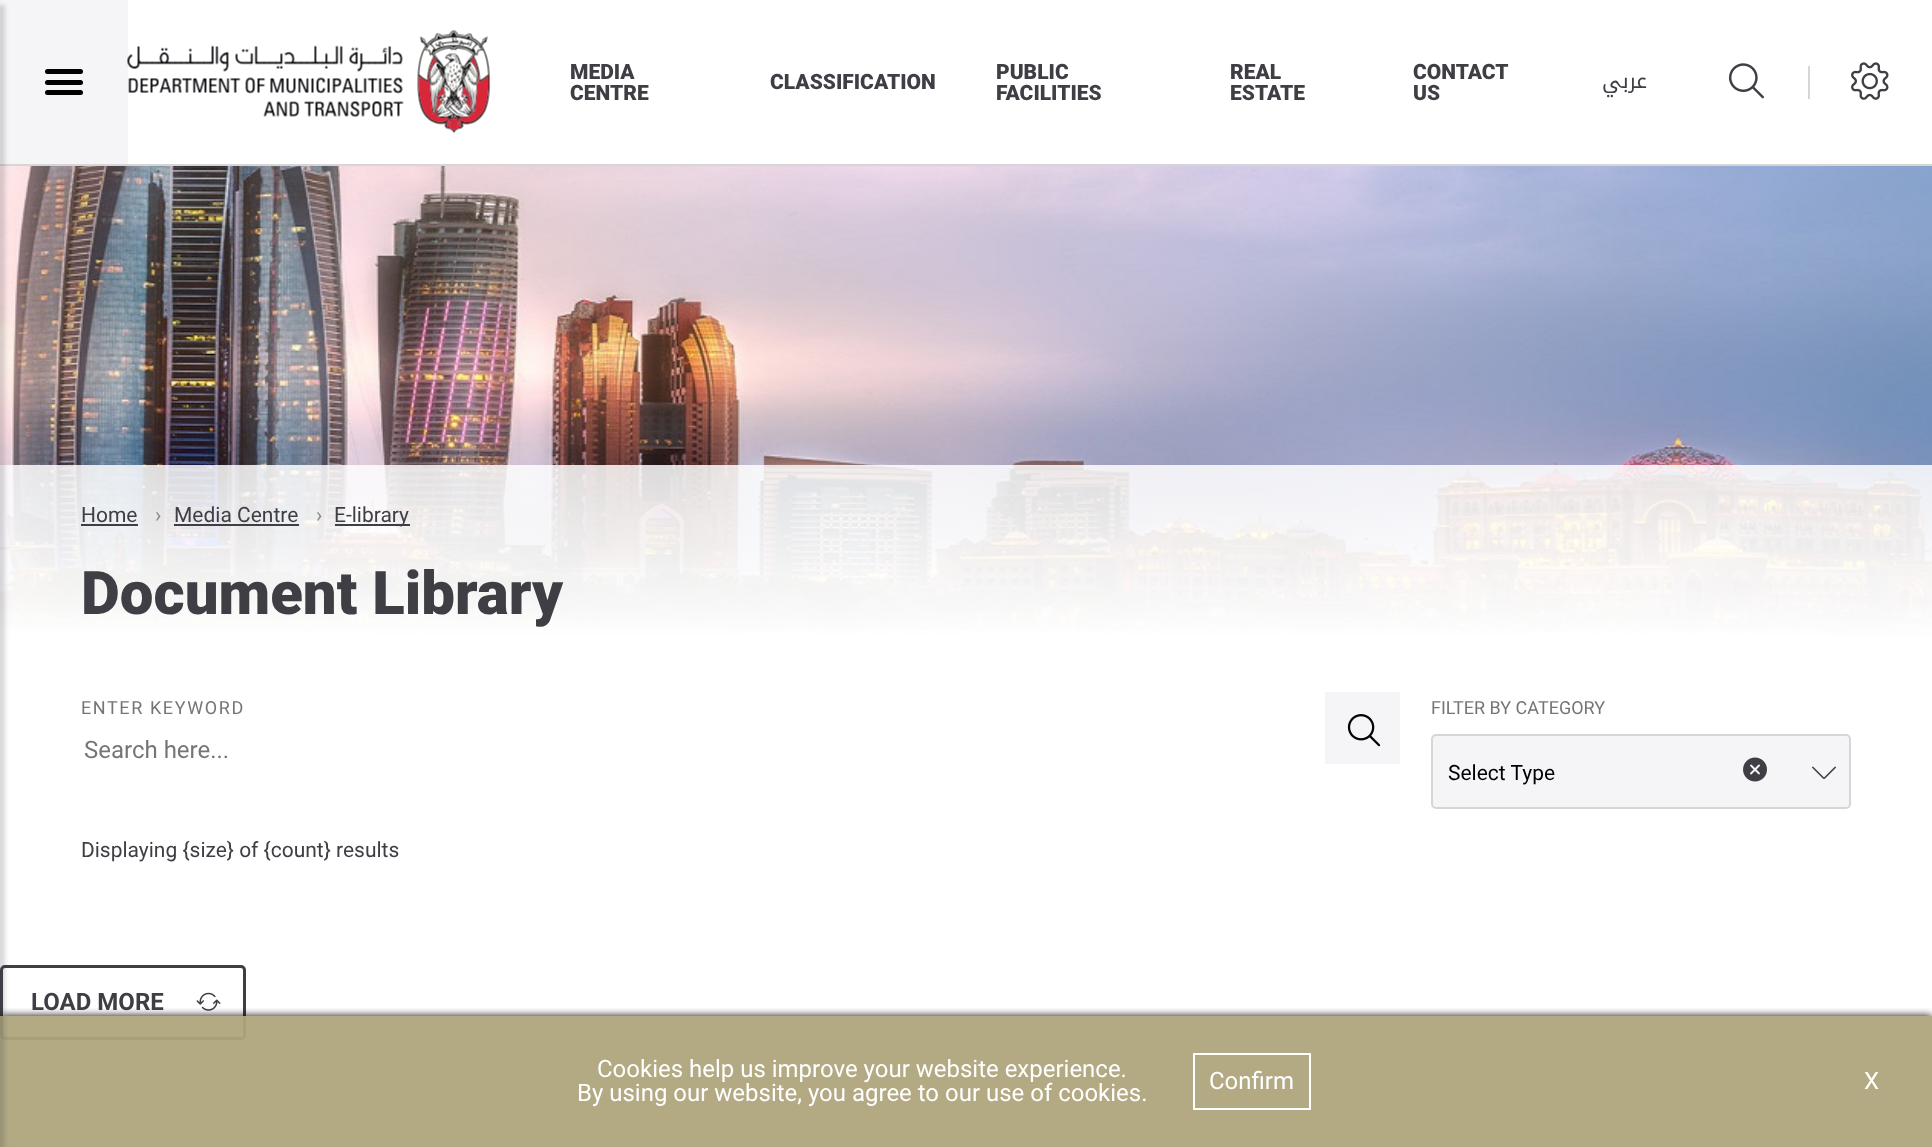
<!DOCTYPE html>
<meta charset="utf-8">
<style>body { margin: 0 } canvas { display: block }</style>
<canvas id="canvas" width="1932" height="1147"></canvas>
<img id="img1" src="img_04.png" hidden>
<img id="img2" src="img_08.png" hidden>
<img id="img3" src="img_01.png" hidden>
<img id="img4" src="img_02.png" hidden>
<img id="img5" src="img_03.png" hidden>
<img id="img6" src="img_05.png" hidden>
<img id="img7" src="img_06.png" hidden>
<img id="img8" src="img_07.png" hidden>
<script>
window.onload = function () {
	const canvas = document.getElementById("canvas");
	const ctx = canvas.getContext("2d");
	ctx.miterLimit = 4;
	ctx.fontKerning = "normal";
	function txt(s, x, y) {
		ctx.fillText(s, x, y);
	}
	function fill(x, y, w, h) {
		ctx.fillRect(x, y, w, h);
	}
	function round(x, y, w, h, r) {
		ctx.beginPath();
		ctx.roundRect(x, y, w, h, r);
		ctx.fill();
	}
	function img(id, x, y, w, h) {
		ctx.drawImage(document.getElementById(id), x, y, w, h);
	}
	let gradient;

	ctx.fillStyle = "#FFFFFF";
	fill(0, 0, 1932, 1147);
	ctx.fillStyle = "#D6D6D6";
	fill(0, 164, 1932, 2);
	ctx.fillStyle = "#F5F5F7";
	fill(0, 0, 128, 164);
	ctx.fillStyle = "#000000";
	round(45, 90, 38, 5, 2.5);
	round(45, 69, 38, 5, 2.5);
	round(45, 80, 38, 5, 2.5);
	img("img1", 0, 166, 1932, 470);
	gradient = ctx.createLinearGradient(966, 418, 966, 668);
	gradient.addColorStop(0, "rgba(255, 255, 255, 0.8)");
	gradient.addColorStop(0.9, "#FFFFFF");
	ctx.fillStyle = gradient;
	fill(0, 465, 1932, 171);
	ctx.beginPath();
	ctx.roundRect(1.5, 966.5, 243, 72, 3.5);
	ctx.strokeStyle = "#3F3E45";
	ctx.lineWidth = 3;
	ctx.stroke();
	ctx.fillStyle = "#FAFAFA";
	fill(0, 1077, 1932, 70);
	img("img2", 196, 992, 25, 19);
	ctx.save();
	ctx.beginPath();
	ctx.rect(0, 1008, 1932, 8);
	ctx.clip();
	ctx.fillStyle = "#000000";
	ctx.filter = "blur(4px)";
	ctx.beginPath();
	ctx.rect(0, 1016, 1932, 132);
	ctx.fill();
	ctx.filter = "none";
	ctx.restore();
	ctx.fillStyle = "rgba(175, 165, 125, 0.95)";
	fill(0, 1016, 1932, 131);
	ctx.fillStyle = "rgba(63, 62, 69, 0.2)";
	ctx.filter = "blur(2px)";
	ctx.beginPath();
	ctx.rect(-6, 5, 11, 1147);
	ctx.fill();
	ctx.filter = "none";
	img("img3", 127, 30, 364, 103);
	img("img4", 1728, 63, 36, 36);
	ctx.fillStyle = "#D6D6D6";
	fill(1808, 66, 2, 33);
	img("img5", 1851, 62, 38, 38);
	ctx.fillStyle = "#3F3E45";
	fill(81, 524, 57, 2);
	fill(174, 524, 125, 2);
	fill(335, 524, 75, 2);
	ctx.fillStyle = "#F5F5F7";
	fill(1325, 692, 75, 72);
	img("img6", 1347, 714, 34, 33);
	ctx.beginPath();
	ctx.roundRect(1432, 735, 418, 73, 4);
	ctx.fill();
	ctx.strokeStyle = "#D6D6D6";
	ctx.lineWidth = 2;
	ctx.stroke();
	img("img7", 1743, 757, 24, 25);
	img("img8", 1812, 766, 24, 13);
	ctx.strokeStyle = "#FFFFFF";
	ctx.strokeRect(1194, 1054, 116, 55);
	ctx.font = "900 21px Roboto";
	ctx.fillStyle = "#3F3E45";
	txt("MEDIA", 570, 79);
	txt("CENTRE", 570, 100);
	txt("CLASSIFICATION", 770, 89);
	txt("PUBLIC", 996, 79);
	txt("FACILITIES", 996, 100);
	txt("REAL", 1230, 79);
	txt("ESTATE", 1230, 100);
	txt("CONTACT", 1413, 79);
	txt("US", 1413, 100);
	ctx.direction = "rtl";
	ctx.font = "21px Noto Kufi Arabic";
	txt("عربي", 1647, 88);
	ctx.direction = "ltr";
	ctx.font = "21px Roboto";
	txt("Home", 81, 522);
	ctx.fillStyle = "#89888C";
	txt("›", 155, 522);
	ctx.fillStyle = "#3F3E45";
	txt("Media Centre", 174, 522);
	ctx.fillStyle = "#89888C";
	txt("›", 316, 522);
	ctx.fillStyle = "#3F3E45";
	txt("E-library", 334, 522);
	ctx.font = "900 60px Roboto";
	txt("Document Library", 81, 614);
	ctx.letterSpacing = "1.6px";
	ctx.font = "18px Roboto";
	ctx.fillStyle = "#757575";
	txt("ENTER KEYWORD", 81, 714);
	ctx.letterSpacing = "0px";
	ctx.font = "24px Roboto";
	txt("Search here...", 84, 758);
	ctx.font = "18px Roboto";
	txt("FILTER BY CATEGORY", 1431, 714);
	ctx.font = "21px Roboto";
	ctx.fillStyle = "#000000";
	txt("Select Type", 1448, 780);
	ctx.fillStyle = "#3F3E45";
	txt("Displaying {size} of {count} results", 81, 857);
	ctx.font = "bold 24px Roboto";
	txt("LOAD MORE", 31, 1010);
	ctx.font = "24px Roboto";
	ctx.fillStyle = "#FFFFFF";
	txt("Cookies help us improve your website experience.", 597, 1077);
	txt("By using our website, you agree to our use of cookies.", 577, 1101);
	txt("Confirm", 1209, 1089);
	txt("X", 1864, 1089);
};
</script>
